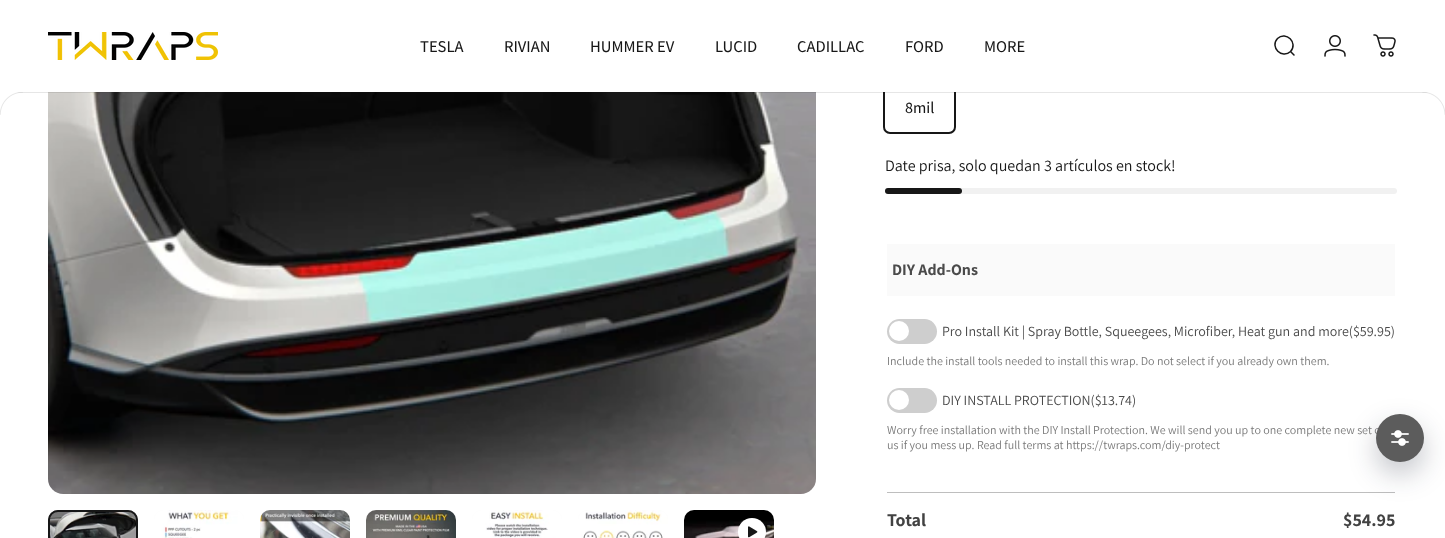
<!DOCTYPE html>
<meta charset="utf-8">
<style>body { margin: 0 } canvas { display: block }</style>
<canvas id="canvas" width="1445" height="538"></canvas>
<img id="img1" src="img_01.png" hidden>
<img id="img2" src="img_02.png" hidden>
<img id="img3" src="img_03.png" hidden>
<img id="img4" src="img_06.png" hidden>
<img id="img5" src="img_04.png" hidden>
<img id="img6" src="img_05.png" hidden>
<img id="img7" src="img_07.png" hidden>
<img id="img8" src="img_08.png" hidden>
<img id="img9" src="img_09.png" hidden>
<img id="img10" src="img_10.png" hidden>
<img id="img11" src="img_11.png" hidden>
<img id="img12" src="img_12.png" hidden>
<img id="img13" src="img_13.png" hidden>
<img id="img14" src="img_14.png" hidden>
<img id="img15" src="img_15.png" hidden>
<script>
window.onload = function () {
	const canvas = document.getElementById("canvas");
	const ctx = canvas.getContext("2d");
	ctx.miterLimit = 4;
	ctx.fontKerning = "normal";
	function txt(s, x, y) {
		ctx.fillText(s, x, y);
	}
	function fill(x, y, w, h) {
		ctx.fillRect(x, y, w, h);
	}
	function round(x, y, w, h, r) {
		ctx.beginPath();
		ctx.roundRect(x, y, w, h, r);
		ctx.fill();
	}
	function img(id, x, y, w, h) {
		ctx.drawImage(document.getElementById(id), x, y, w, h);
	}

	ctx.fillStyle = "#FFFFFF";
	fill(0, 0, 1445, 538);
	ctx.fillStyle = "#FAFAFA";
	round(48, -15, 768, 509, 15);
	ctx.beginPath();
	ctx.roundRect(884, 83, 71, 50, 6);
	ctx.strokeStyle = "#171717";
	ctx.lineWidth = 2;
	ctx.stroke();
	ctx.fillStyle = "#FFFFFF";
	fill(48, 0, 908, 92);
	img("img1", 48, 32, 170, 28);
	ctx.beginPath();
	ctx.moveTo(1294, 55);
	ctx.lineTo(1290.5, 51.5);
	ctx.moveTo(1290.5, 51.5);
	ctx.bezierCurveTo(1298.5, 43, 1286, 30.5, 1277.5, 38.5);
	ctx.bezierCurveTo(1269.5, 47, 1282, 59.5, 1290.5, 51.5);
	ctx.closePath();
	ctx.lineWidth = 1.5;
	ctx.lineCap = "round";
	ctx.stroke();
	img("img2", 1324, 35, 22, 22);
	img("img3", 1373, 34, 23, 23);
	img("img4", 48, 92, 768, 402);
	ctx.fillStyle = "rgba(23, 23, 23, 0.11)";
	fill(17, 92, 1411, 1);
	img("img5", 0, 92, 23, 23);
	img("img6", 1422, 92, 23, 23);
	img("img7", 48, 510, 90, 28);
	ctx.beginPath();
	ctx.roundRect(49, 511, 88, 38, 9);
	ctx.lineWidth = 2;
	ctx.stroke();
	ctx.fillStyle = "#FAFAFA";
	round(154, 510, 90, 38, 10);
	img("img8", 154, 510, 90, 28);
	round(260, 510, 90, 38, 10);
	img("img9", 260, 510, 90, 28);
	round(366, 510, 90, 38, 10);
	img("img10", 366, 510, 90, 28);
	round(472, 510, 90, 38, 10);
	img("img11", 472, 510, 90, 28);
	round(578, 510, 90, 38, 10);
	img("img12", 578, 510, 90, 28);
	round(684, 510, 90, 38, 10);
	img("img13", 684, 510, 90, 28);
	ctx.fillStyle = "#FFFFFF";
	ctx.beginPath();
	ctx.arc(752, 532, 14, 0, Math.PI * 2);
	ctx.fill();
	img("img14", 748, 526, 10, 12);
	ctx.fillStyle = "#F1F1F1";
	round(885, 188, 512, 6, 3);
	ctx.fillStyle = "#171717";
	round(885, 188, 77, 6, 3);
	ctx.fillStyle = "#FAFAFA";
	fill(887, 244, 508, 52);
	ctx.fillStyle = "#CECECE";
	round(887, 319, 50, 25, 12.5);
	ctx.fillStyle = "#FFFFFF";
	ctx.beginPath();
	ctx.arc(899, 331, 10, 0, Math.PI * 2);
	ctx.fill();
	ctx.fillStyle = "#CECECE";
	round(887, 388, 50, 25, 12.5);
	ctx.fillStyle = "#FFFFFF";
	ctx.beginPath();
	ctx.arc(899, 400, 10, 0, Math.PI * 2);
	ctx.fill();
	ctx.fillStyle = "#BEBEBE";
	fill(887, 492, 508, 1);
	ctx.fillStyle = "rgba(15, 23, 42, 0.25)";
	ctx.filter = "blur(14px)";
	ctx.beginPath();
	ctx.roundRect(1376, 426, 48, 48, 24);
	ctx.fill();
	ctx.filter = "none";
	ctx.font = "500 16.5px Assistant";
	ctx.fillStyle = "#171717";
	txt("TESLA", 420, 52);
	txt("RIVIAN", 504, 52);
	txt("HUMMER EV", 590, 52);
	txt("LUCID", 715, 52);
	txt("CADILLAC", 797, 52);
	txt("FORD", 905, 52);
	txt("MORE", 984, 52);
	ctx.font = "500 16px Assistant";
	txt("8mil", 905, 113);
	ctx.font = "16px Assistant";
	txt("Date prisa, solo quedan 3 artículos en stock!", 885, 171);
	ctx.font = "bold 16px Assistant";
	ctx.fillStyle = "#4A4A4A";
	txt("DIY Add-Ons", 892, 275);
	ctx.font = "14px Assistant";
	txt("Pro Install Kit | Spray Bottle, Squeegees, Microfiber, Heat gun and more($59.95)", 942, 336);
	ctx.font = "12px Assistant";
	ctx.fillStyle = "#797979";
	txt("Include the install tools needed to install this wrap. Do not select if you already own them.", 887, 365);
	ctx.font = "14px Assistant";
	ctx.fillStyle = "#4A4A4A";
	txt("DIY INSTALL PROTECTION($13.74)", 942, 405);
	ctx.font = "12px Assistant";
	ctx.fillStyle = "#797979";
	txt("Worry free installation with the DIY Install Protection. We will send you up to one complete new set o", 887, 434);
	txt("us if you mess up. Read full terms at https://twraps.com/diy-protect", 887, 449);
	ctx.font = "bold 18px Assistant";
	ctx.fillStyle = "#424242";
	txt("Total", 887, 526);
	txt("$54.95", 1343, 526);
	ctx.fillStyle = "#5C5C5C";
	ctx.beginPath();
	ctx.arc(1400, 438, 24, 0, Math.PI * 2);
	ctx.fill();
	img("img15", 1391, 430, 18, 16);
};
</script>
